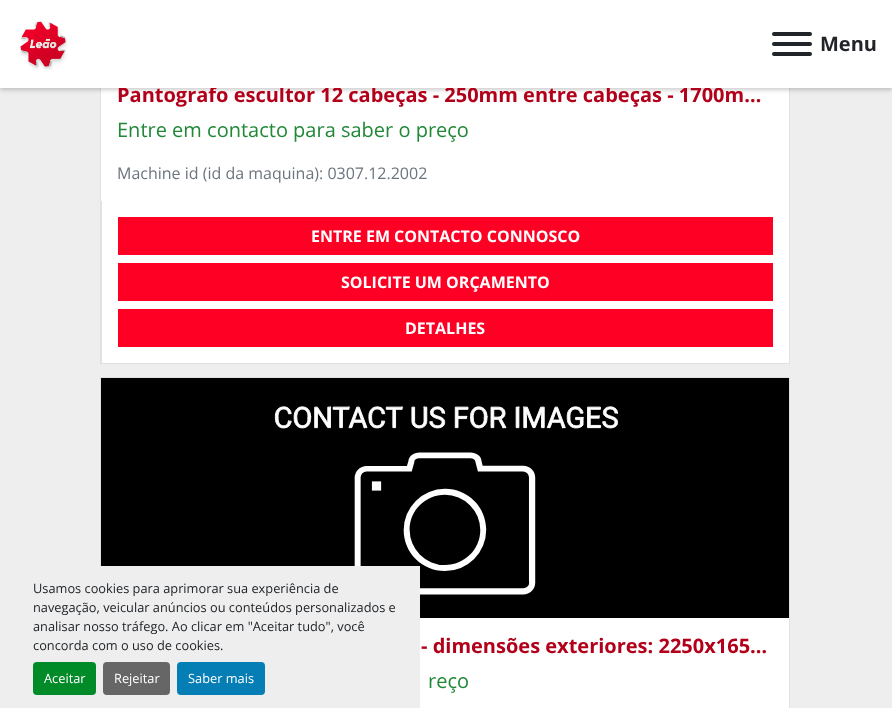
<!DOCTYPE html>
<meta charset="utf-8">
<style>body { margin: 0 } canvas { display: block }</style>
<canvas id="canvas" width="892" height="708"></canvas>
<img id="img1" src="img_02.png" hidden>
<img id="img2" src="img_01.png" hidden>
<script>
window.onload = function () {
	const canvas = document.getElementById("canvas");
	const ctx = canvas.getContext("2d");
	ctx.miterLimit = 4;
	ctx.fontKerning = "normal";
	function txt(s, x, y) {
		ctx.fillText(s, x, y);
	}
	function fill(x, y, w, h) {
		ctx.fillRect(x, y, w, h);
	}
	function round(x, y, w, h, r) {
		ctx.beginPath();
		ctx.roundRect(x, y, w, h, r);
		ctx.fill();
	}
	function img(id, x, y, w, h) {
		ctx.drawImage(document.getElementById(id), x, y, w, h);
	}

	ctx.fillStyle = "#EEEEEE";
	fill(0, 0, 892, 708);
	ctx.strokeStyle = "#DEE2E6";
	ctx.strokeRect(100.5, -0.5, 689, 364);
	ctx.fillStyle = "#FFFFFF";
	fill(101, 88, 688, 113);
	ctx.fillStyle = "rgba(0, 0, 0, 0.2)";
	ctx.filter = "blur(2px)";
	ctx.beginPath();
	ctx.rect(0, 2, 892, 88);
	ctx.fill();
	ctx.filter = "none";
	ctx.fillStyle = "#FFFFFF";
	fill(102, 201, 687, 162);
	ctx.fillStyle = "#DEE2E6";
	fill(101, 201, 1, 162);
	ctx.fillStyle = "#FF0025";
	fill(118, 217, 655, 38);
	fill(118, 263, 655, 38);
	fill(118, 309, 655, 38);
	ctx.strokeRect(100.5, 377.5, 689, 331);
	ctx.fillStyle = "#000000";
	fill(101, 378, 688, 240);
	img("img1", 274, 406, 345, 189);
	ctx.fillStyle = "#FFFFFF";
	fill(420, 618, 369, 90);
	ctx.fillStyle = "#EEEEEE";
	fill(100, 566, 320, 142);
	ctx.fillStyle = "#008A28";
	round(33, 662, 63, 33, 4);
	ctx.fillStyle = "#666666";
	round(103, 662, 67, 33, 4);
	ctx.fillStyle = "#057EB6";
	round(177, 662, 88, 33, 4);
	ctx.font = "bold 20px Open Sans";
	ctx.fillStyle = "#B3001A";
	txt("Pantografo escultor 12 cabeças - 250mm entre cabeças - 1700m…", 117, 102);
	ctx.fillStyle = "#FFFFFF";
	fill(0, 0, 892, 88);
	ctx.fillStyle = "#212529";
	round(772, 52, 40, 4, 2);
	round(772, 32, 40, 4, 2);
	round(772, 42, 40, 4, 2);
	txt("Menu", 820, 51);
	img("img2", 20, 21, 48, 49);
	ctx.font = "20px Open Sans";
	ctx.fillStyle = "#218838";
	txt("Entre em contacto para saber o preço", 117, 137);
	ctx.font = "16px Open Sans";
	ctx.fillStyle = "#6C757D";
	txt("Machine id (id da maquina): 0307.12.2002", 117, 179);
	ctx.font = "bold 16px Open Sans";
	ctx.fillStyle = "#FFFFFF";
	txt("ENTRE EM CONTACTO CONNOSCO", 311, 242);
	txt("SOLICITE UM ORÇAMENTO", 341, 288);
	txt("DETALHES", 405, 334);
	ctx.font = "bold 20px Open Sans";
	ctx.fillStyle = "#B3001A";
	txt("- dimensões exteriores: 2250x165…", 421, 653);
	ctx.font = "20px Open Sans";
	ctx.fillStyle = "#218838";
	txt("reço", 428, 688);
	ctx.font = "12.8px Open Sans";
	ctx.fillStyle = "#212529";
	txt("Usamos cookies para aprimorar sua experiência de", 33, 593);
	txt("navegação, veicular anúncios ou conteúdos personalizados e", 33, 612);
	txt("analisar nosso tráfego. Ao clicar em \"Aceitar tudo\", você", 33, 631);
	txt("concorda com o uso de cookies.", 33, 650);
	ctx.fillStyle = "#FFFFFF";
	txt("Aceitar", 44, 683);
	txt("Rejeitar", 114, 683);
	txt("Saber mais", 188, 683);
};
</script>
